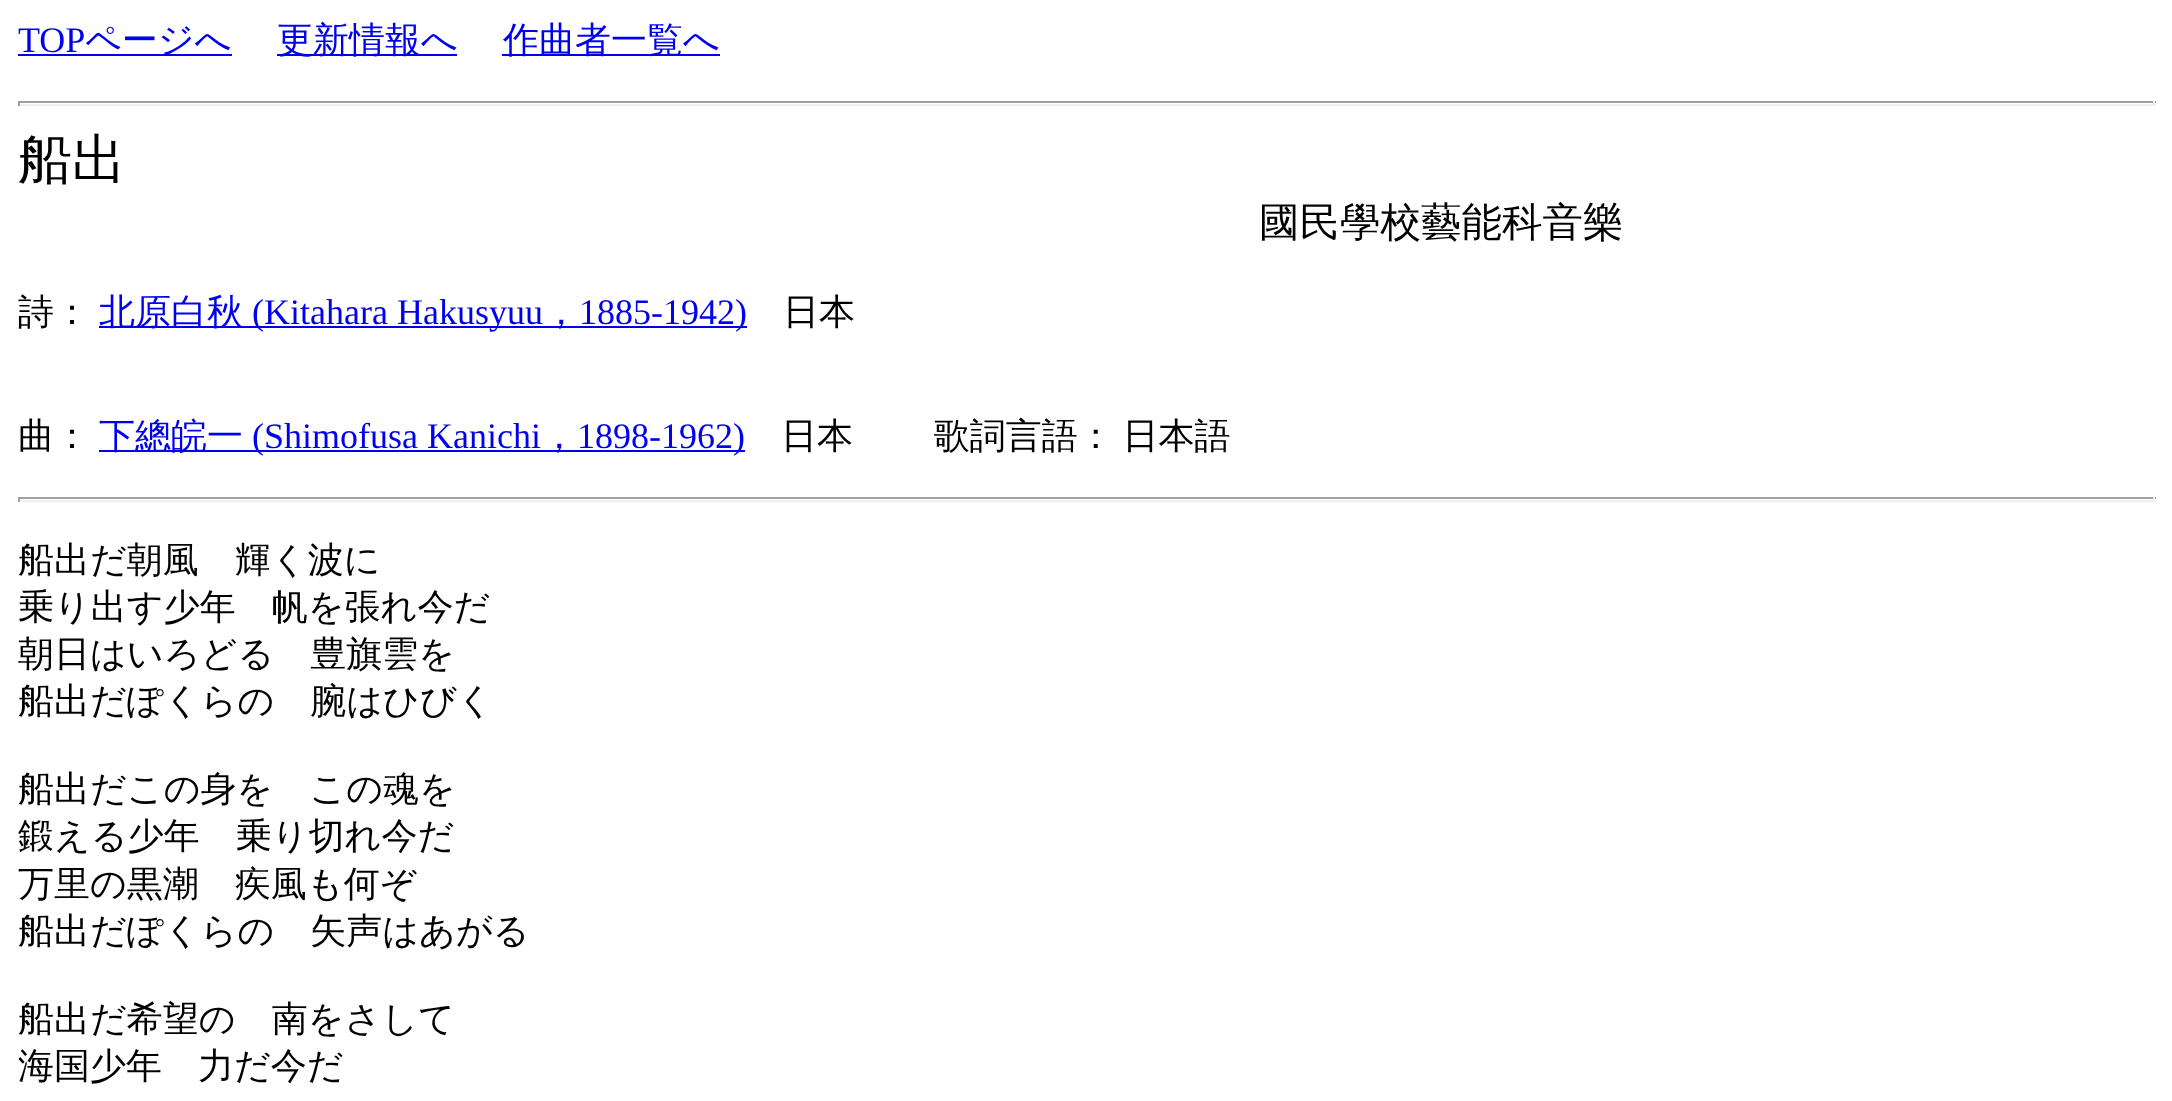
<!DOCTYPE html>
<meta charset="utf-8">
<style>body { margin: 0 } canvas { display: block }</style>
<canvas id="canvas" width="2172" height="1101"></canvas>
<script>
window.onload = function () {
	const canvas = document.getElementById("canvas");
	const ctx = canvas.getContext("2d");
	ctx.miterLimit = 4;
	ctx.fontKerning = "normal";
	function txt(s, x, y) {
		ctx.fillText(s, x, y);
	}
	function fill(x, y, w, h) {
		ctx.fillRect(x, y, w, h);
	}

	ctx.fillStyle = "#FFFFFF";
	fill(0, 0, 2172, 1101);
	ctx.fillStyle = "#0000EE";
	fill(18, 54, 214, 2);
	fill(277, 54, 180, 2);
	fill(502, 54, 218, 2);
	ctx.fillStyle = "#9F9F9F";
	fill(18, 101, 2138, 2);
	ctx.fillStyle = "#EEEEEE";
	fill(2153, 101, 2, 5);
	fill(18, 104, 2138, 2);
	ctx.fillStyle = "#9F9F9F";
	fill(18, 101, 2, 5);
	ctx.fillStyle = "#0000EE";
	fill(99, 326, 648, 2);
	fill(99, 450, 646, 2);
	ctx.fillStyle = "#9F9F9F";
	fill(18, 497, 2138, 2);
	ctx.fillStyle = "#EEEEEE";
	fill(2153, 497, 2, 5);
	fill(18, 500, 2138, 2);
	ctx.fillStyle = "#9F9F9F";
	fill(18, 497, 2, 5);
	ctx.font = "36px Liberation Serif";
	ctx.fillStyle = "#0000EE";
	txt("TOP", 18, 52);
	ctx.font = "500 36px WenQuanYi Zen Hei";
	txt("ページへ", 85, 52);
	txt("更新情報へ", 277, 52);
	txt("作曲者一覧へ", 503, 52);
	ctx.font = "500 54px WenQuanYi Zen Hei";
	ctx.fillStyle = "#000000";
	txt("船出", 18, 178);
	ctx.font = "500 40.5px WenQuanYi Zen Hei";
	txt("國民學校藝能科音樂", 1259, 236);
	ctx.font = "500 36px WenQuanYi Zen Hei";
	txt("詩：", 18, 324);
	ctx.fillStyle = "#0000EE";
	txt("北原白秋", 99, 324);
	ctx.font = "36px Liberation Serif";
	txt("(Kitahara Hakusyuu", 252, 324);
	ctx.font = "500 36px WenQuanYi Zen Hei";
	txt("，", 543, 324);
	ctx.font = "36px Liberation Serif";
	txt("1885-1942)", 579, 324);
	ctx.font = "500 36px WenQuanYi Zen Hei";
	ctx.fillStyle = "#000000";
	txt("日本", 783, 324);
	txt("曲：", 18, 448);
	ctx.fillStyle = "#0000EE";
	txt("下總皖一", 99, 448);
	ctx.font = "36px Liberation Serif";
	txt("(Shimofusa Kanichi", 252, 448);
	ctx.font = "500 36px WenQuanYi Zen Hei";
	txt("，", 541, 448);
	ctx.font = "36px Liberation Serif";
	txt("1898-1962)", 577, 448);
	ctx.wordSpacing = "-2px";
	ctx.font = "500 36px WenQuanYi Zen Hei";
	ctx.fillStyle = "#000000";
	txt("日本 　　歌詞言語： 日本語", 781, 448);
	ctx.wordSpacing = "0px";
	txt("船出だ朝風　輝く波に", 18, 572);
	txt("乗り出す少年　帆を張れ今だ", 18, 619);
	txt("朝日はいろどる　豊旗雲を", 18, 666);
	txt("船出だぽくらの　腕はひびく", 18, 713);
	txt("船出だこの身を　この魂を", 18, 801);
	txt("鍛える少年　乗り切れ今だ", 18, 848);
	txt("万里の黒潮　疾風も何ぞ", 18, 896);
	txt("船出だぽくらの　矢声はあがる", 18, 943);
	txt("船出だ希望の　南をさして", 18, 1031);
	txt("海国少年　力だ今だ", 18, 1078);
};
</script>
